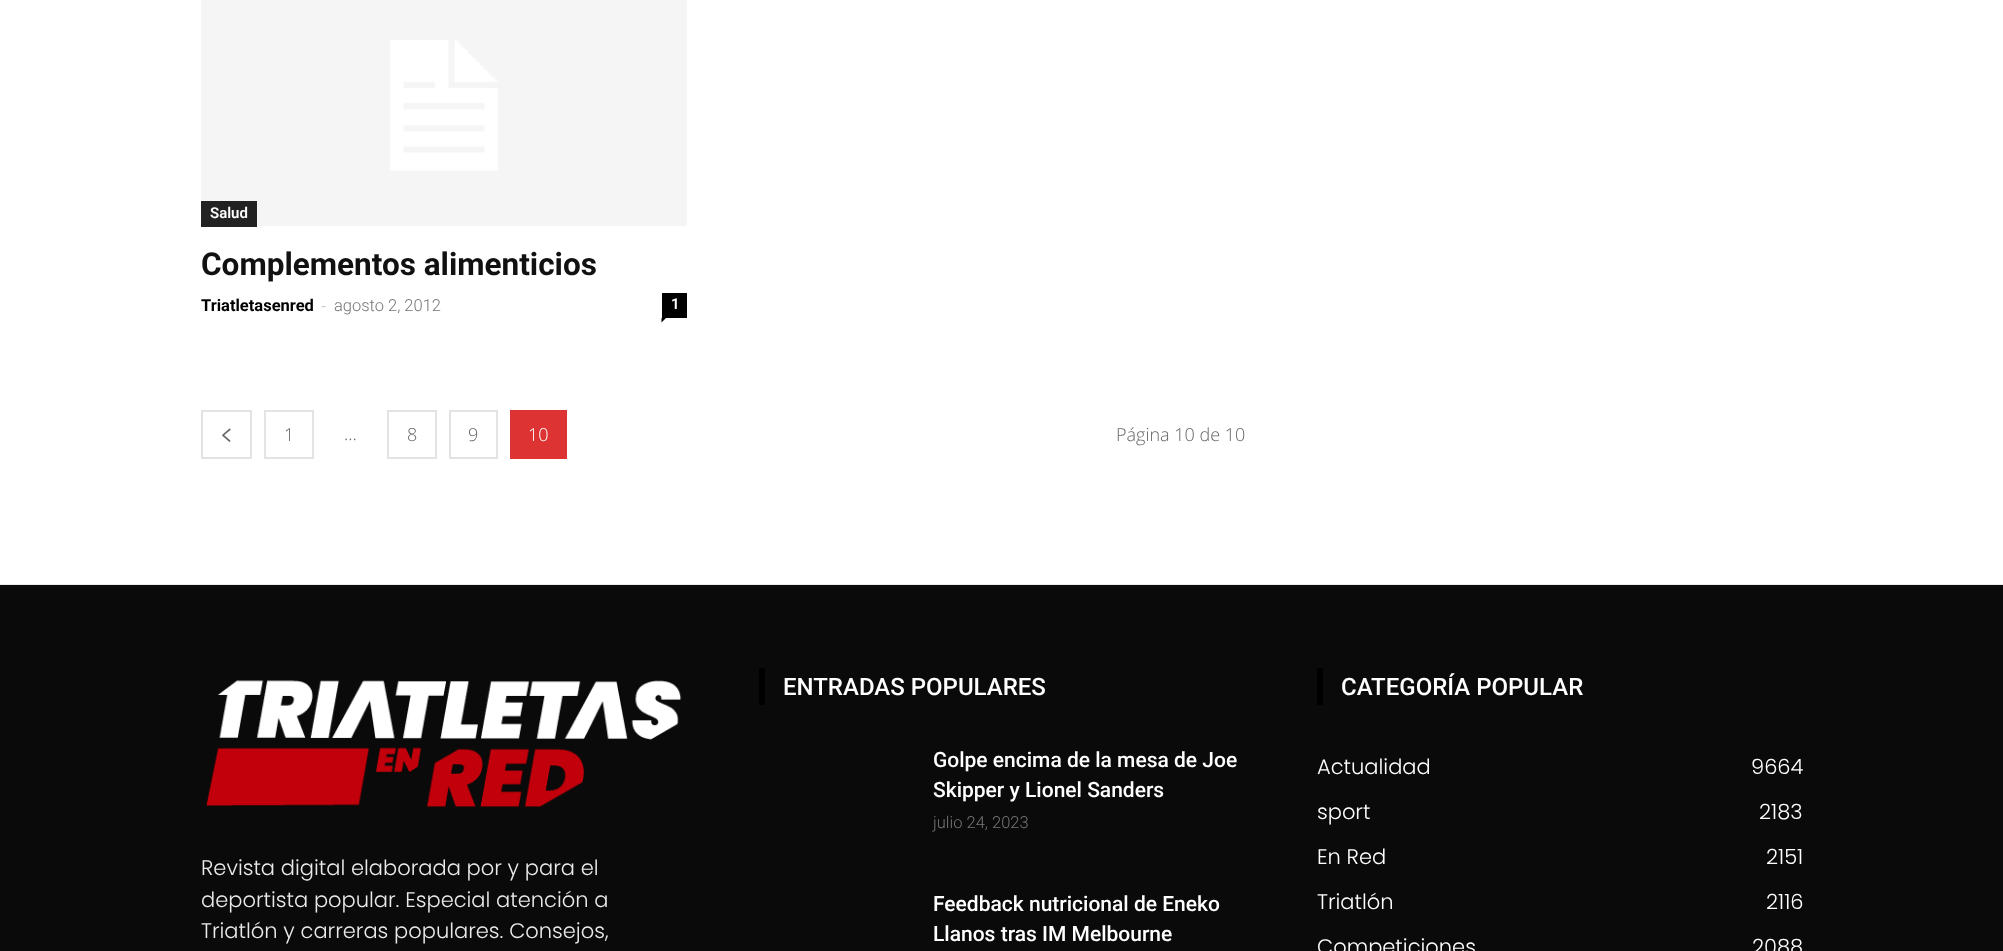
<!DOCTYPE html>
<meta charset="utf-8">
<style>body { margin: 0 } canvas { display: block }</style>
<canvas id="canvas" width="2003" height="951"></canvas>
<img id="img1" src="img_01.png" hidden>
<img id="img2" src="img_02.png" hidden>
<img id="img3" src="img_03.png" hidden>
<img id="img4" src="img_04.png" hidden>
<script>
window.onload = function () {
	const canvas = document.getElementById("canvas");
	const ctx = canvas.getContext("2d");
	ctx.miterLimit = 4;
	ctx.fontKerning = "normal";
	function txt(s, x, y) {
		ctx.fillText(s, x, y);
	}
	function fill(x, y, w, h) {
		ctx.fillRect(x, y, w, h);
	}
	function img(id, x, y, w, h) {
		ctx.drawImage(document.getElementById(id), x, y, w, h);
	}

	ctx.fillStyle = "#FFFFFF";
	fill(0, 0, 2003, 951);
	img("img1", 201, 0, 486, 226);
	ctx.fillStyle = "#222222";
	fill(201, 201, 56, 26);
	ctx.fillStyle = "#000000";
	fill(662, 293, 25, 25);
	ctx.beginPath();
	ctx.moveTo(661.5, 318);
	ctx.lineTo(666, 318);
	ctx.lineTo(661.5, 322.5);
	ctx.closePath();
	ctx.fill();
	ctx.strokeStyle = "#E3E3E3";
	ctx.lineWidth = 2;
	ctx.strokeRect(202, 411, 49, 47);
	img("img2", 222, 428, 9, 14);
	ctx.strokeRect(265, 411, 48, 47);
	ctx.strokeRect(388, 411, 48, 47);
	ctx.strokeRect(450, 411, 47, 47);
	ctx.fillStyle = "#DD3333";
	fill(510, 410, 57, 49);
	ctx.fillStyle = "#0A0A0A";
	fill(0, 585, 2003, 366);
	img("img3", 0, 584, 2003, 1);
	img("img4", 206, 680, 476, 128);
	ctx.fillStyle = "#000000";
	fill(759, 668, 6, 37);
	fill(1317, 668, 6, 37);
	ctx.font = "600 15px Roboto";
	ctx.fillStyle = "#FFFFFF";
	txt("Salud", 210, 218);
	ctx.font = "bold 31.5px Roboto";
	ctx.fillStyle = "#111111";
	txt("Complementos alimenticios", 201, 275);
	ctx.font = "bold 16.5px Roboto";
	ctx.fillStyle = "#000000";
	txt("Triatletasenred", 201, 311);
	ctx.font = "16.5px Open Sans";
	ctx.fillStyle = "#CCCCCC";
	txt("-", 321, 311);
	ctx.font = "300 16.5px Roboto";
	ctx.fillStyle = "#767676";
	txt("agosto 2, 2012", 334, 311);
	ctx.font = "600 15px Roboto";
	ctx.fillStyle = "#FFFFFF";
	txt("1", 671, 309);
	ctx.font = "300 18px Open Sans";
	ctx.fillStyle = "#666666";
	txt("1", 284, 441);
	txt("...", 344, 440);
	txt("8", 407, 441);
	txt("9", 468, 441);
	ctx.fillStyle = "#FFFFFF";
	txt("10", 528, 441);
	ctx.fillStyle = "#666666";
	txt("Página 10 de 10", 1116, 441);
	ctx.font = "300 21px Poppins";
	ctx.fillStyle = "#EAEAEA";
	txt("Revista digital elaborada por y para el", 201, 875);
	txt("deportista popular. Especial atención a", 201, 907);
	txt("Triatlón y carreras populares. Consejos,", 201, 938);
	ctx.font = "500 24px Roboto";
	ctx.fillStyle = "#FFFFFF";
	txt("ENTRADAS POPULARES", 783, 695);
	ctx.font = "500 21px Roboto";
	txt("Golpe encima de la mesa de Joe", 933, 767);
	txt("Skipper y Lionel Sanders", 933, 797);
	ctx.font = "300 16.5px Roboto";
	ctx.fillStyle = "#767676";
	txt("julio 24, 2023", 933, 828);
	ctx.font = "500 21px Roboto";
	ctx.fillStyle = "#FFFFFF";
	txt("Feedback nutricional de Eneko", 933, 911);
	txt("Llanos tras IM Melbourne", 933, 941);
	ctx.font = "500 24px Roboto";
	txt("CATEGORÍA POPULAR", 1341, 695);
	ctx.font = "300 21px Poppins";
	txt("Actualidad", 1317, 774);
	txt("9664", 1751, 774);
	txt("sport", 1317, 819);
	txt("2183", 1759, 819);
	txt("En Red", 1317, 864);
	txt("2151", 1766, 864);
	txt("Triatlón", 1317, 909);
	txt("2116", 1766, 909);
	txt("Competiciones", 1317, 954);
	txt("2088", 1752, 954);
};
</script>
